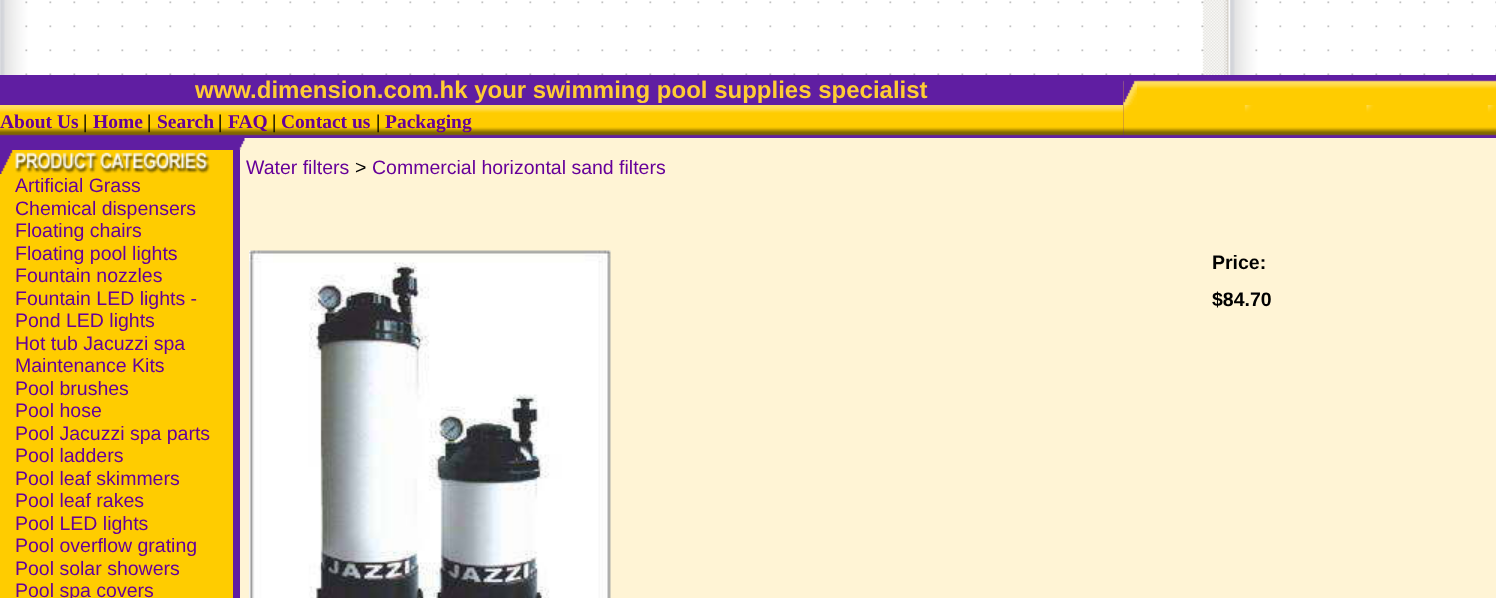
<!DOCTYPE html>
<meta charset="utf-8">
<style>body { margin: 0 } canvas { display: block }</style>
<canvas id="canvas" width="1496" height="598"></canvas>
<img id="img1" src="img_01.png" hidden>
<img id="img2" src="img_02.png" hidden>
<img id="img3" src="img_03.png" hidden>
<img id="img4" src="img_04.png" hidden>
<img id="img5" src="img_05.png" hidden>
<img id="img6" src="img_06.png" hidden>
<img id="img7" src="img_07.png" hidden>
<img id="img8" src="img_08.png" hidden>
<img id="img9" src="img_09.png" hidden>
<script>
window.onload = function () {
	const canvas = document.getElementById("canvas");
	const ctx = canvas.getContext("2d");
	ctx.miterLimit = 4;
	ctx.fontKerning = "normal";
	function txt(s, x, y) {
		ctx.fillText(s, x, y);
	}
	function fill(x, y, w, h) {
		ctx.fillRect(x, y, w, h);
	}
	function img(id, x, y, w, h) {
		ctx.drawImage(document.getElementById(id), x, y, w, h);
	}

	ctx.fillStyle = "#FFF4D5";
	fill(0, 0, 1496, 598);
	img("img1", 0, 0, 1496, 75);
	ctx.fillStyle = "#601EA2";
	fill(0, 75, 1124, 63);
	img("img2", 1123, 75, 373, 30);
	img("img3", 1123, 80, 14, 25);
	img("img4", 0, 105, 1124, 31);
	img("img5", 1123, 105, 373, 33);
	img("img6", 0, 138, 245, 12);
	fill(233, 150, 7, 448);
	ctx.fillStyle = "#FFCC00";
	fill(0, 150, 233, 448);
	img("img7", 0, 150, 13, 24);
	img("img8", 15, 152, 195, 22);
	img("img9", 249, 250, 362, 348);
	ctx.font = "bold 24px Liberation Sans";
	ctx.fillStyle = "#FFCC33";
	txt("www.dimension.com.hk your swimming pool supplies specialist", 195, 98);
	ctx.font = "bold 19.5px Liberation Serif";
	ctx.fillStyle = "#660099";
	txt("About Us", 0, 128);
	ctx.fillStyle = "#000000";
	txt("|", 83, 128);
	ctx.fillStyle = "#660099";
	txt("Home", 93, 128);
	ctx.fillStyle = "#000000";
	txt("|", 147, 128);
	ctx.fillStyle = "#660099";
	txt("Search", 157, 128);
	ctx.fillStyle = "#000000";
	txt("|", 218, 128);
	ctx.fillStyle = "#660099";
	txt("FAQ", 228, 128);
	ctx.fillStyle = "#000000";
	txt("|", 272, 128);
	ctx.fillStyle = "#660099";
	txt("Contact us", 281, 128);
	ctx.fillStyle = "#000000";
	txt("|", 376, 128);
	ctx.fillStyle = "#660099";
	txt("Packaging", 385, 128);
	ctx.font = "19.5px Liberation Sans";
	txt("Artificial Grass", 15, 192);
	txt("Chemical dispensers", 15, 215);
	txt("Floating chairs", 15, 237);
	txt("Floating pool lights", 15, 260);
	txt("Fountain nozzles", 15, 282);
	txt("Fountain LED lights -", 15, 305);
	txt("Pond LED lights", 15, 327);
	txt("Hot tub Jacuzzi spa", 15, 350);
	txt("Maintenance Kits", 15, 372);
	txt("Pool brushes", 15, 395);
	txt("Pool hose", 15, 417);
	txt("Pool Jacuzzi spa parts", 15, 440);
	txt("Pool ladders", 15, 462);
	txt("Pool leaf skimmers", 15, 485);
	txt("Pool leaf rakes", 15, 507);
	txt("Pool LED lights", 15, 530);
	txt("Pool overflow grating", 15, 552);
	txt("Pool solar showers", 15, 575);
	txt("Pool spa covers", 15, 597);
	txt("Water filters", 246, 174);
	ctx.fillStyle = "#000000";
	txt(">", 355, 174);
	ctx.fillStyle = "#660099";
	txt("Commercial horizontal sand filters", 372, 174);
	ctx.font = "bold 19.5px Liberation Sans";
	ctx.fillStyle = "#000000";
	txt("Price:", 1212, 269);
	txt("$84.70", 1212, 306);
};
</script>
